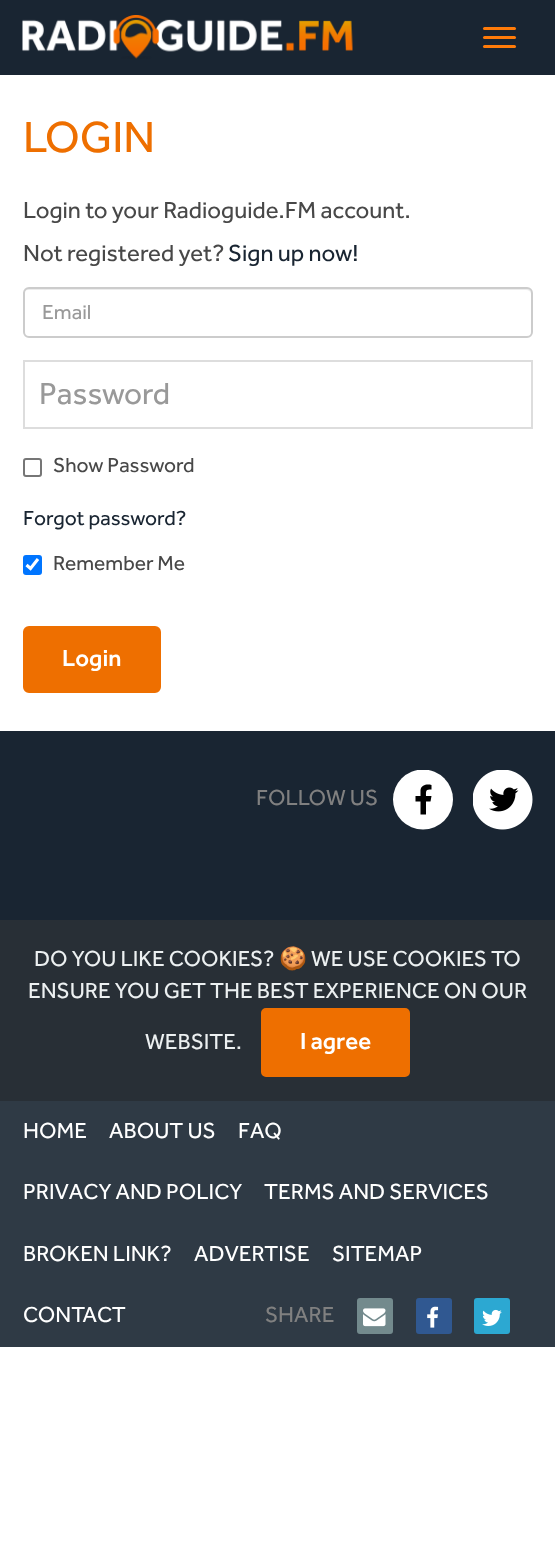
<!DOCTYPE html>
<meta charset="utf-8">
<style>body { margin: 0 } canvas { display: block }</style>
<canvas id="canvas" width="555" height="1564"></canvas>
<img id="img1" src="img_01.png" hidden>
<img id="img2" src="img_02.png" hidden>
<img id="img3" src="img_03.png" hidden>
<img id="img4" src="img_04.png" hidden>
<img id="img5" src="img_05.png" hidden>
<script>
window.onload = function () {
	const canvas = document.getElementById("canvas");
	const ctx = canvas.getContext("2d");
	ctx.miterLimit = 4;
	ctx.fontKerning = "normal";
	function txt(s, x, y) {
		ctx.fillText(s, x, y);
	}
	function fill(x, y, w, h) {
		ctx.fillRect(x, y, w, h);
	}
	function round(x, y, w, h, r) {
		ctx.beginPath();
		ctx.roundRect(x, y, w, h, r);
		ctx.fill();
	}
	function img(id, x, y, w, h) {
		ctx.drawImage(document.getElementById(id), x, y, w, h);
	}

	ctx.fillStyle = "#FFFFFF";
	fill(0, 0, 555, 1564);
	ctx.fillStyle = "#192532";
	fill(0, 0, 555, 75);
	img("img1", 22, 15, 331, 44);
	ctx.fillStyle = "#FF7B09";
	round(483, 27, 33, 3, 1.5);
	round(483, 36, 33, 3, 1.5);
	round(483, 45, 33, 3, 1.5);
	ctx.fillStyle = "#ECECEC";
	ctx.beginPath();
	ctx.moveTo(28, 290);
	ctx.lineTo(526, 290);
	ctx.bezierCurveTo(529, 290, 531, 292, 531, 294);
	ctx.lineTo(531, 293);
	ctx.bezierCurveTo(531, 290, 529, 288, 526, 288);
	ctx.lineTo(29, 288);
	ctx.bezierCurveTo(26, 288, 24, 290, 24, 293);
	ctx.lineTo(24, 294);
	ctx.bezierCurveTo(24, 292, 26, 290, 28, 290);
	ctx.closePath();
	ctx.fill();
	ctx.beginPath();
	ctx.roundRect(24, 288, 508, 49, 5);
	ctx.strokeStyle = "#CCCCCC";
	ctx.lineWidth = 2;
	ctx.stroke();
	ctx.strokeStyle = "#DDDDDD";
	ctx.strokeRect(24, 361, 508, 67);
	ctx.beginPath();
	ctx.roundRect(24, 459, 17, 17, 2);
	ctx.strokeStyle = "#767676";
	ctx.stroke();
	ctx.fillStyle = "#0075FF";
	round(23, 555, 19, 20, 3);
	ctx.beginPath();
	ctx.moveTo(26.5, 565);
	ctx.lineTo(30.5, 568.5);
	ctx.lineTo(38, 559);
	ctx.strokeStyle = "#FFFFFF";
	ctx.lineWidth = 3.1;
	ctx.stroke();
	ctx.fillStyle = "#EE6F00";
	ctx.beginPath();
	ctx.roundRect(24, 627, 136, 65, 5);
	ctx.fill();
	ctx.strokeStyle = "#EE6F00";
	ctx.lineWidth = 2;
	ctx.stroke();
	ctx.fillStyle = "#192532";
	fill(0, 731, 555, 189);
	ctx.save();
	ctx.beginPath();
	ctx.rect(393, 770, 60, 60);
	ctx.clip();
	ctx.fillStyle = "#FFFFFF";
	ctx.beginPath();
	ctx.arc(423, 799.5, 30, 0, Math.PI * 2);
	ctx.fill();
	ctx.restore();
	img("img2", 473, 770, 60, 60);
	ctx.fillStyle = "#000000";
	ctx.beginPath();
	ctx.moveTo(430.5, 801.5);
	ctx.lineTo(431.5, 796);
	ctx.lineTo(426, 796);
	ctx.bezierCurveTo(426, 790.5, 425.5, 789.5, 431.5, 789.5);
	ctx.lineTo(431.5, 785);
	ctx.bezierCurveTo(427, 784, 421.5, 784.5, 420.5, 790);
	ctx.lineTo(420.5, 796);
	ctx.lineTo(415.5, 796);
	ctx.lineTo(415.5, 801.5);
	ctx.lineTo(420.5, 801.5);
	ctx.lineTo(420.5, 814.5);
	ctx.lineTo(426, 814.5);
	ctx.lineTo(426, 801.5);
	ctx.closePath();
	ctx.fill();
	ctx.fillStyle = "#2F3A45";
	fill(0, 1101, 555, 246);
	ctx.fillStyle = "#282F36";
	fill(0, 920, 555, 181);
	ctx.fillStyle = "#EE6F00";
	ctx.beginPath();
	ctx.roundRect(262, 1009, 147, 67, 4);
	ctx.fill();
	ctx.stroke();
	ctx.fillStyle = "#738A8D";
	round(357, 1298, 36, 36, 3);
	img("img3", 363, 1308, 23, 19);
	ctx.fillStyle = "#305891";
	round(416, 1298, 36, 36, 3);
	img("img4", 427, 1306, 12, 22);
	ctx.fillStyle = "#2CA8D2";
	round(474, 1298, 36, 36, 3);
	img("img5", 482, 1309, 20, 17);
	ctx.font = "45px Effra";
	ctx.fillStyle = "#EE6F00";
	txt("LOGIN", 23, 152);
	ctx.font = "24px Effra";
	ctx.fillStyle = "#484848";
	txt("Login to your Radioguide.FM account.", 23, 218);
	txt("Not registered yet?", 23, 261);
	ctx.fillStyle = "#192532";
	txt("Sign up now!", 228, 261);
	ctx.font = "21px Effra";
	ctx.fillStyle = "#999999";
	txt("Email", 42, 319);
	ctx.font = "31.5px Effra";
	txt("Password", 39, 404);
	ctx.font = "21px Effra";
	ctx.fillStyle = "#484848";
	txt("Show Password", 53, 472);
	ctx.fillStyle = "#192532";
	txt("Forgot password?", 23, 525);
	ctx.fillStyle = "#484848";
	txt("Remember Me", 53, 570);
	ctx.font = "500 24px Effra";
	ctx.fillStyle = "#FFFFFF";
	txt("Login", 62, 666);
	ctx.font = "22.5px Effra";
	ctx.fillStyle = "#808080";
	txt("FOLLOW US", 256, 805);
	ctx.fillStyle = "#ECF0F1";
	txt("DO YOU LIKE COOKIES?", 34, 966);
	ctx.font = "22.5px Noto Color Emoji";
	txt("🍪", 279, 966);
	ctx.font = "22.5px Effra";
	txt("WE USE COOKIES TO", 311, 966);
	txt("ENSURE YOU GET THE BEST EXPERIENCE ON OUR", 28, 998);
	txt("WEBSITE.", 145, 1049);
	ctx.font = "500 24px Effra";
	ctx.fillStyle = "#FFFFFF";
	txt("I agree", 300, 1049);
	ctx.font = "22.5px Effra";
	txt("HOME", 23, 1138);
	txt("ABOUT US", 109, 1138);
	txt("FAQ", 238, 1138);
	txt("PRIVACY AND POLICY", 23, 1199);
	txt("TERMS AND SERVICES", 264, 1199);
	txt("BROKEN LINK?", 23, 1261);
	txt("ADVERTISE", 194, 1261);
	txt("SITEMAP", 332, 1261);
	txt("CONTACT", 23, 1322);
	ctx.fillStyle = "#808080";
	txt("SHARE", 265, 1322);
};
</script>
